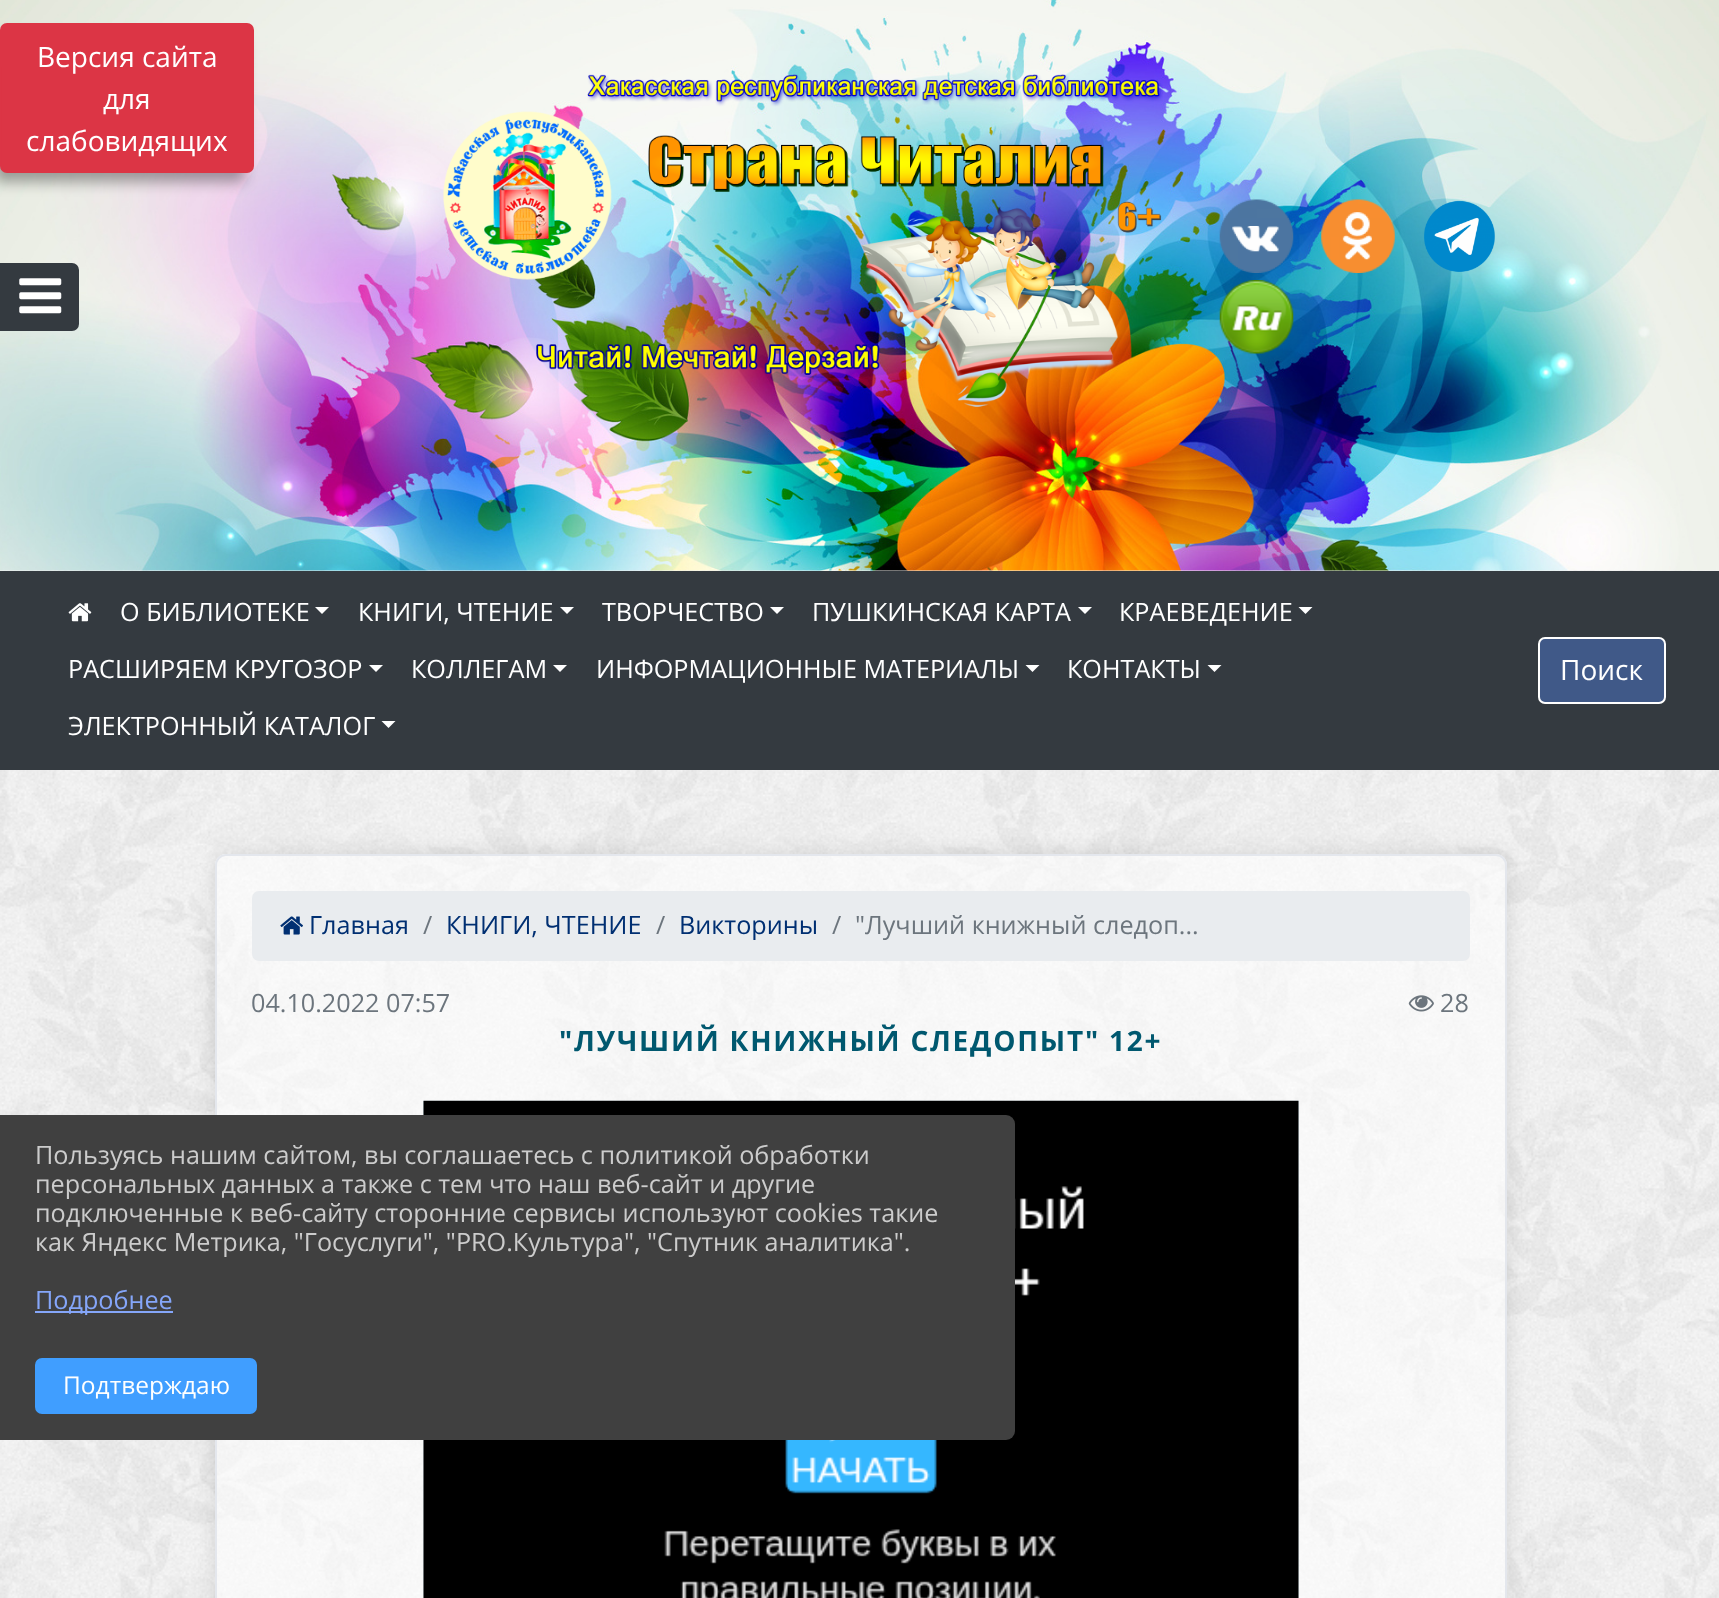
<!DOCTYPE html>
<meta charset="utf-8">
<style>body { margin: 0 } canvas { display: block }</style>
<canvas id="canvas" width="1719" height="1598"></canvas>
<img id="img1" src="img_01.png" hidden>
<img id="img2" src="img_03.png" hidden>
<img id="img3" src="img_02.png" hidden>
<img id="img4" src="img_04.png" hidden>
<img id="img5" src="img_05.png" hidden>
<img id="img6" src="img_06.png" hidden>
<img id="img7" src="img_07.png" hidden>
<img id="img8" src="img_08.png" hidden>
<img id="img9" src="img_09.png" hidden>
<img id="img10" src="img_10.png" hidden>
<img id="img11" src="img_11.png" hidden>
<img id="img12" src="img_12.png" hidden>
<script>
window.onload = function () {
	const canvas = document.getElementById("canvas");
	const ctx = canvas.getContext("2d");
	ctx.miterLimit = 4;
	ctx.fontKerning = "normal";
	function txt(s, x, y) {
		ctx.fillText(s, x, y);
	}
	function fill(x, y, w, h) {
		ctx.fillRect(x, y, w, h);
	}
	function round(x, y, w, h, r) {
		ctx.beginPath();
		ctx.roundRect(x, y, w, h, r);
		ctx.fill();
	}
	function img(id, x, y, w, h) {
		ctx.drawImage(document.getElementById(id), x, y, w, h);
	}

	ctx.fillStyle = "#FFFFFF";
	fill(0, 0, 1719, 1598);
	img("img1", 0, 570, 1719, 1028);
	img("img2", 0, 0, 1719, 571);
	ctx.fillStyle = "rgba(0, 0, 0, 0.35)";
	ctx.filter = "blur(7px)";
	ctx.beginPath();
	ctx.roundRect(-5, 35, 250, 147, 5);
	ctx.fill();
	ctx.filter = "none";
	ctx.fillStyle = "#DC3545";
	ctx.beginPath();
	ctx.roundRect(1, 24, 252, 148, 6);
	ctx.fill();
	ctx.strokeStyle = "#DC3545";
	ctx.lineWidth = 2;
	ctx.stroke();
	ctx.fillStyle = "#343A40";
	ctx.beginPath();
	ctx.roundRect(1, 264, 77, 66, [0, 6, 6, 0]);
	ctx.fill();
	ctx.strokeStyle = "#343A40";
	ctx.stroke();
	img("img3", 19, 278, 43, 36);
	img("img4", 443, 74, 720, 333);
	img("img5", 1219, 199, 75, 74);
	img("img6", 1321, 199, 74, 74);
	img("img7", 1424, 200, 71, 72);
	img("img8", 1219, 280, 75, 74);
	fill(0, 571, 1719, 199);
	img("img9", 68, 603, 24, 19);
	ctx.fillStyle = "#FFFFFF";
	ctx.beginPath();
	ctx.moveTo(315, 607);
	ctx.lineTo(329, 607);
	ctx.lineTo(322, 614);
	ctx.closePath();
	ctx.fill();
	ctx.beginPath();
	ctx.moveTo(560, 607);
	ctx.lineTo(574, 607);
	ctx.lineTo(567, 614);
	ctx.closePath();
	ctx.fill();
	ctx.beginPath();
	ctx.moveTo(770, 607);
	ctx.lineTo(784, 607);
	ctx.lineTo(777, 614);
	ctx.closePath();
	ctx.fill();
	ctx.beginPath();
	ctx.moveTo(1078, 607);
	ctx.lineTo(1092, 607);
	ctx.lineTo(1085, 614);
	ctx.closePath();
	ctx.fill();
	ctx.beginPath();
	ctx.moveTo(1298.5, 607);
	ctx.lineTo(1312.5, 607);
	ctx.lineTo(1305.5, 614);
	ctx.closePath();
	ctx.fill();
	ctx.beginPath();
	ctx.moveTo(369, 665);
	ctx.lineTo(383, 665);
	ctx.lineTo(376, 672);
	ctx.closePath();
	ctx.fill();
	ctx.beginPath();
	ctx.moveTo(553, 665);
	ctx.lineTo(567, 665);
	ctx.lineTo(560, 672);
	ctx.closePath();
	ctx.fill();
	ctx.beginPath();
	ctx.moveTo(1025.5, 665);
	ctx.lineTo(1039.5, 665);
	ctx.lineTo(1032.5, 672);
	ctx.closePath();
	ctx.fill();
	ctx.beginPath();
	ctx.moveTo(1207.5, 665);
	ctx.lineTo(1221.5, 665);
	ctx.lineTo(1214.5, 672);
	ctx.closePath();
	ctx.fill();
	ctx.beginPath();
	ctx.moveTo(381.5, 721);
	ctx.lineTo(395.5, 721);
	ctx.lineTo(388.5, 728);
	ctx.closePath();
	ctx.fill();
	ctx.fillStyle = "#405988";
	ctx.beginPath();
	ctx.roundRect(1539, 638, 126, 65, 6);
	ctx.fill();
	ctx.strokeStyle = "#FFFFFF";
	ctx.stroke();
	ctx.save();
	ctx.beginPath();
	ctx.moveTo(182, 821);
	ctx.lineTo(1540, 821);
	ctx.lineTo(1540, 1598);
	ctx.lineTo(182, 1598);
	ctx.closePath();
	ctx.moveTo(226, 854);
	ctx.lineTo(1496, 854);
	ctx.bezierCurveTo(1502, 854, 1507, 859, 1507, 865);
	ctx.lineTo(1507, 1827);
	ctx.bezierCurveTo(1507, 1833, 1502, 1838, 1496, 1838);
	ctx.lineTo(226, 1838);
	ctx.bezierCurveTo(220, 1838, 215, 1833, 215, 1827);
	ctx.lineTo(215, 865);
	ctx.bezierCurveTo(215, 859, 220, 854, 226, 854);
	ctx.closePath();
	ctx.clip("evenodd");
	ctx.fillStyle = "rgba(0, 0, 0, 0.12)";
	ctx.filter = "blur(10.5px)";
	ctx.beginPath();
	ctx.roundRect(215, 854, 1292, 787, 11);
	ctx.fill();
	ctx.filter = "none";
	ctx.restore();
	ctx.fillStyle = "rgba(255, 255, 255, 0.56)";
	ctx.beginPath();
	ctx.moveTo(226, 854);
	ctx.lineTo(1496, 854);
	ctx.bezierCurveTo(1502, 854, 1507, 859, 1507, 865);
	ctx.lineTo(1507, 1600);
	ctx.lineTo(215, 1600);
	ctx.lineTo(215, 865);
	ctx.bezierCurveTo(215, 859, 220, 854, 226, 854);
	ctx.closePath();
	ctx.fill();
	ctx.beginPath();
	ctx.roundRect(216, 855, 1290, 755, 10);
	ctx.strokeStyle = "#E4E7ED";
	ctx.stroke();
	ctx.fillStyle = "#E9ECEF";
	round(252, 891, 1218, 70, 7);
	img("img10", 280, 916, 23, 19);
	img("img11", 1408, 995, 26, 17);
	img("img12", 423, 1100, 876, 498);
	ctx.fillStyle = "#404040";
	ctx.beginPath();
	ctx.roundRect(0, 1115, 1015, 325, [0, 9, 9, 0]);
	ctx.fill();
	ctx.fillStyle = "#85A6F9";
	fill(35, 1311, 138, 2);
	ctx.fillStyle = "#409EFF";
	ctx.beginPath();
	ctx.roundRect(36, 1359, 220, 54, 6);
	ctx.fill();
	ctx.strokeStyle = "#409EFF";
	ctx.stroke();
	ctx.font = "28px Open Sans";
	ctx.fillStyle = "#FFFFFF";
	txt("Версия сайта", 37, 67);
	txt("для", 103, 109);
	txt("слабовидящих", 26, 151);
	ctx.font = "25.2px Open Sans";
	txt("О БИБЛИОТЕКЕ", 120, 621);
	txt("КНИГИ, ЧТЕНИЕ", 358, 621);
	txt("ТВОРЧЕСТВО", 602, 621);
	txt("ПУШКИНСКАЯ КАРТА", 812, 621);
	txt("КРАЕВЕДЕНИЕ", 1119, 621);
	txt("РАСШИРЯЕМ КРУГОЗОР", 68, 678);
	txt("КОЛЛЕГАМ", 411, 678);
	txt("ИНФОРМАЦИОННЫЕ МАТЕРИАЛЫ", 596, 678);
	txt("КОНТАКТЫ", 1067, 678);
	txt("ЭЛЕКТРОННЫЙ КАТАЛОГ", 68, 735);
	ctx.font = "28px Open Sans";
	txt("Поиск", 1560, 680);
	ctx.font = "25.2px Open Sans";
	ctx.fillStyle = "#002F72";
	txt("Главная", 309, 934);
	ctx.fillStyle = "#6C757D";
	txt("/", 423, 934);
	ctx.fillStyle = "#002F72";
	txt("КНИГИ, ЧТЕНИЕ", 446, 934);
	ctx.fillStyle = "#6C757D";
	txt("/", 656, 934);
	ctx.fillStyle = "#002F72";
	txt("Викторины", 679, 934);
	ctx.fillStyle = "#6C757D";
	txt("/", 832, 934);
	txt("\"Лучший книжный следоп...", 855, 934);
	txt("04.10.2022 07:57", 251, 1012);
	txt("28", 1440, 1012);
	ctx.letterSpacing = "1.75px";
	ctx.font = "bold 28px Open Sans";
	ctx.fillStyle = "#00586F";
	txt("\"ЛУЧШИЙ КНИЖНЫЙ СЛЕДОПЫТ\" 12+", 559, 1051);
	ctx.letterSpacing = "0px";
	ctx.font = "25.2px Open Sans";
	ctx.fillStyle = "#CCCCCC";
	txt("Пользуясь нашим сайтом, вы соглашаетесь с политикой обработки", 35, 1164);
	txt("персональных данных а также с тем что наш веб-сайт и другие", 35, 1193);
	txt("подключенные к веб-сайту сторонние сервисы используют cookies такие", 35, 1222);
	txt("как Яндекс Метрика, \"Госуслуги\", \"PRO.Культура\", \"Спутник аналитика\".", 35, 1251);
	ctx.fillStyle = "#85A6F9";
	txt("Подробнее", 35, 1309);
	ctx.font = "24.5px Open Sans";
	ctx.fillStyle = "#FFFFFF";
	txt("Подтверждаю", 63, 1394);
};
</script>
